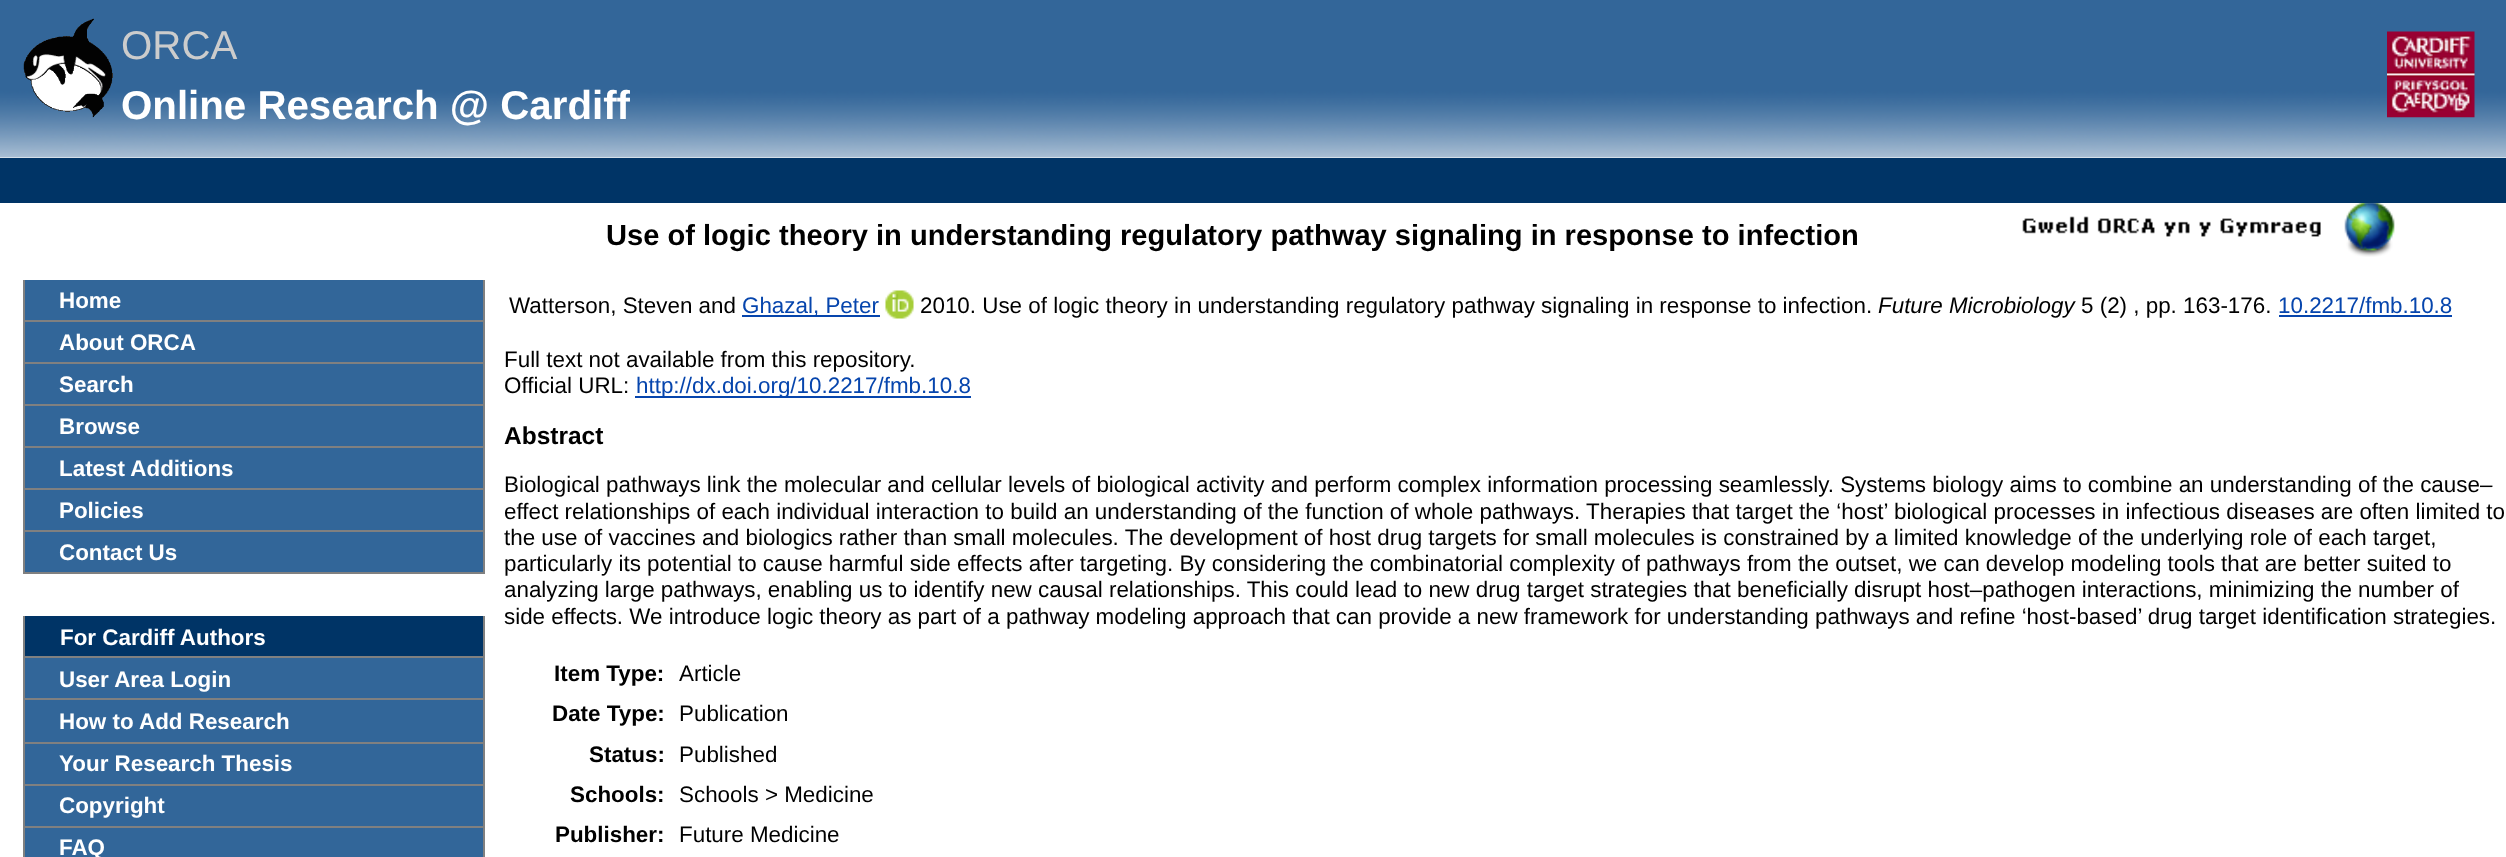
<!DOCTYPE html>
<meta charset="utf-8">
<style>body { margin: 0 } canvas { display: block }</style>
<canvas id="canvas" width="2506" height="857"></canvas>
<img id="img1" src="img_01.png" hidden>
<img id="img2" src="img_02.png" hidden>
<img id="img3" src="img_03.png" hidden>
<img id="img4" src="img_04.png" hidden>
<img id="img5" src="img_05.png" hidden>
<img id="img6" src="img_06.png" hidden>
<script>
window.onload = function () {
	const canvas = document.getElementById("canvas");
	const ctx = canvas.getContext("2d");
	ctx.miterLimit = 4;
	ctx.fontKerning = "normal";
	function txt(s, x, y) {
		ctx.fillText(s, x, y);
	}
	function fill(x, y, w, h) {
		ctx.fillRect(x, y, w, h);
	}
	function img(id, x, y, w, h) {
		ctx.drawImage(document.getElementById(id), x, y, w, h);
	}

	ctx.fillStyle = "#FFFFFF";
	fill(0, 0, 2506, 857);
	img("img1", 0, 0, 2506, 158);
	img("img2", 23, 18, 90, 100);
	img("img3", 2387, 31, 88, 87);
	ctx.fillStyle = "#003466";
	fill(0, 158, 2506, 45);
	img("img4", 2022, 216, 299, 21);
	img("img5", 2344, 203, 51, 54);
	ctx.fillStyle = "#326699";
	fill(25, 280, 458, 40);
	ctx.fillStyle = "#808080";
	fill(483, 280, 2, 294);
	fill(23, 320, 462, 2);
	fill(23, 280, 2, 42);
	ctx.fillStyle = "#326699";
	fill(25, 322, 458, 40);
	ctx.fillStyle = "#808080";
	fill(23, 362, 462, 2);
	fill(23, 322, 2, 42);
	ctx.fillStyle = "#326699";
	fill(25, 364, 458, 40);
	ctx.fillStyle = "#808080";
	fill(23, 404, 462, 2);
	fill(23, 364, 2, 42);
	ctx.fillStyle = "#326699";
	fill(25, 406, 458, 40);
	ctx.fillStyle = "#808080";
	fill(23, 446, 462, 2);
	fill(23, 406, 2, 42);
	ctx.fillStyle = "#326699";
	fill(25, 448, 458, 40);
	ctx.fillStyle = "#808080";
	fill(23, 488, 462, 2);
	fill(23, 448, 2, 42);
	ctx.fillStyle = "#326699";
	fill(25, 490, 458, 40);
	ctx.fillStyle = "#808080";
	fill(23, 530, 462, 2);
	fill(23, 490, 2, 42);
	ctx.fillStyle = "#326699";
	fill(25, 532, 458, 40);
	ctx.fillStyle = "#808080";
	fill(23, 572, 462, 2);
	fill(23, 532, 2, 42);
	ctx.fillStyle = "#003466";
	fill(25, 616, 458, 40);
	ctx.fillStyle = "#808080";
	fill(483, 616, 2, 241);
	fill(23, 656, 462, 2);
	fill(23, 616, 2, 42);
	ctx.fillStyle = "#326699";
	fill(25, 658, 458, 40);
	ctx.fillStyle = "#808080";
	fill(23, 698, 462, 2);
	fill(23, 658, 2, 42);
	ctx.fillStyle = "#326699";
	fill(25, 700, 458, 42);
	ctx.fillStyle = "#808080";
	fill(23, 742, 462, 2);
	fill(23, 700, 2, 44);
	ctx.fillStyle = "#326699";
	fill(25, 744, 458, 40);
	ctx.fillStyle = "#808080";
	fill(23, 784, 462, 2);
	fill(23, 744, 2, 42);
	ctx.fillStyle = "#326699";
	fill(25, 786, 458, 40);
	ctx.fillStyle = "#808080";
	fill(23, 826, 462, 2);
	fill(23, 786, 2, 71);
	ctx.fillStyle = "#326699";
	fill(25, 828, 458, 29);
	ctx.fillStyle = "#0645AD";
	fill(742, 315, 138, 2);
	img("img6", 885, 290, 29, 29);
	fill(2279, 315, 173, 2);
	fill(635, 396, 336, 2);
	ctx.font = "40.25px Liberation Sans";
	ctx.fillStyle = "#CCCCCC";
	txt("ORCA", 121, 59);
	ctx.font = "bold 40.25px Liberation Sans";
	ctx.fillStyle = "#FFFFFF";
	txt("Online Research @ Cardiff", 121, 119);
	ctx.font = "bold 22.4px Liberation Sans";
	txt("Home", 59, 308);
	txt("About ORCA", 59, 350);
	txt("Search", 59, 392);
	txt("Browse", 59, 434);
	txt("Latest Additions", 59, 476);
	txt("Policies", 59, 518);
	txt("Contact Us", 59, 560);
	txt("For Cardiff Authors", 60, 645);
	txt("User Area Login", 59, 687);
	txt("How to Add Research", 59, 729);
	txt("Your Research Thesis", 59, 771);
	txt("Copyright", 59, 813);
	txt("FAQ", 59, 855);
	ctx.font = "bold 29.1px Liberation Sans";
	ctx.fillStyle = "#000000";
	txt("Use of logic theory in understanding regulatory pathway signaling in response to infection", 606, 245);
	ctx.font = "22.4px Liberation Sans";
	txt("Watterson, Steven and", 509, 313);
	ctx.fillStyle = "#0645AD";
	txt("Ghazal, Peter", 742, 313);
	ctx.fillStyle = "#000000";
	txt("2010. Use of logic theory in understanding regulatory pathway signaling in response to infection.", 920, 313);
	ctx.font = "italic 22.4px Liberation Sans";
	txt("Future Microbiology", 1878, 313);
	ctx.font = "22.4px Liberation Sans";
	txt("5 (2) , pp. 163-176.", 2081, 313);
	ctx.fillStyle = "#0645AD";
	txt("10.2217/fmb.10.8", 2278, 313);
	ctx.fillStyle = "#000000";
	txt("Full text not available from this repository.", 504, 367);
	txt("Official URL:", 504, 393);
	ctx.fillStyle = "#0645AD";
	txt("http://dx.doi.org/10.2217/fmb.10.8", 636, 393);
	ctx.font = "bold 24.5px Liberation Sans";
	ctx.fillStyle = "#000000";
	txt("Abstract", 504, 444);
	ctx.font = "22.4px Liberation Sans";
	txt("Biological pathways link the molecular and cellular levels of biological activity and perform complex information processing seamlessly. Systems biology aims to combine an understanding of the cause–", 504, 492);
	txt("effect relationships of each individual interaction to build an understanding of the function of whole pathways. Therapies that target the ‘host’ biological processes in infectious diseases are often limited to", 504, 519);
	txt("the use of vaccines and biologics rather than small molecules. The development of host drug targets for small molecules is constrained by a limited knowledge of the underlying role of each target,", 504, 545);
	txt("particularly its potential to cause harmful side effects after targeting. By considering the combinatorial complexity of pathways from the outset, we can develop modeling tools that are better suited to", 504, 571);
	txt("analyzing large pathways, enabling us to identify new causal relationships. This could lead to new drug target strategies that beneficially disrupt host–pathogen interactions, minimizing the number of", 504, 597);
	txt("side effects. We introduce logic theory as part of a pathway modeling approach that can provide a new framework for understanding pathways and refine ‘host-based’ drug target identification strategies.", 504, 624);
	ctx.font = "bold 22.4px Liberation Sans";
	txt("Item Type:", 554, 681);
	ctx.font = "22.4px Liberation Sans";
	txt("Article", 679, 681);
	ctx.font = "bold 22.4px Liberation Sans";
	txt("Date Type:", 552, 721);
	ctx.font = "22.4px Liberation Sans";
	txt("Publication", 679, 721);
	ctx.font = "bold 22.4px Liberation Sans";
	txt("Status:", 589, 762);
	ctx.font = "22.4px Liberation Sans";
	txt("Published", 679, 762);
	ctx.font = "bold 22.4px Liberation Sans";
	txt("Schools:", 570, 802);
	ctx.font = "22.4px Liberation Sans";
	txt("Schools > Medicine", 679, 802);
	ctx.font = "bold 22.4px Liberation Sans";
	txt("Publisher:", 555, 842);
	ctx.font = "22.4px Liberation Sans";
	txt("Future Medicine", 679, 842);
};
</script>
